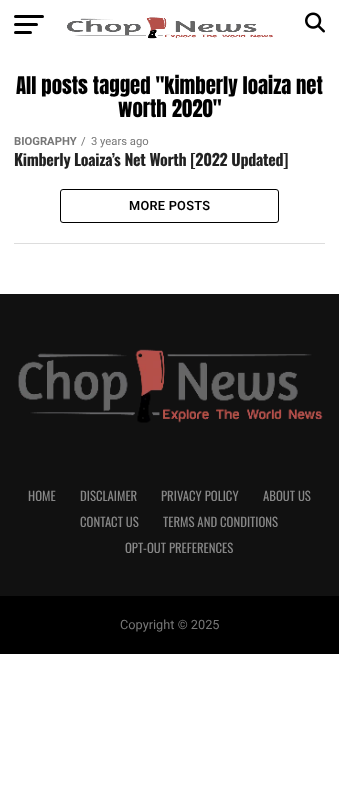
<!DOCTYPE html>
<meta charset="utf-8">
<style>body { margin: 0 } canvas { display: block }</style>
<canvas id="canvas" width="339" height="810"></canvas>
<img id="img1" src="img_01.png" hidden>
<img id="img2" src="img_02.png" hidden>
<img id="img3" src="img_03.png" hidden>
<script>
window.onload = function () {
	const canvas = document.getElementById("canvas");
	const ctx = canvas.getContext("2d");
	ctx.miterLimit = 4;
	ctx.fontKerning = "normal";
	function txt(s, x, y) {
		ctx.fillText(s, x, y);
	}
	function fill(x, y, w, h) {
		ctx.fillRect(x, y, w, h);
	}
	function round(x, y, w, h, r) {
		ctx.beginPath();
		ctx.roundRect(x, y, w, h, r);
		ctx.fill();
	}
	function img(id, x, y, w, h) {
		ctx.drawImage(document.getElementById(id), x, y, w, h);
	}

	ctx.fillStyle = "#FFFFFF";
	fill(0, 0, 339, 810);
	ctx.fillStyle = "#000000";
	round(14, 15, 30, 3, 1.5);
	round(14, 23, 24, 3, 1.5);
	round(14, 31, 18, 3, 1.5);
	img("img1", 67, 17, 206, 22);
	img("img2", 305, 12, 20, 21);
	ctx.beginPath();
	ctx.roundRect(60.5, 189.5, 218, 33, 2.5);
	ctx.strokeStyle = "#000000";
	ctx.stroke();
	ctx.fillStyle = "#DDDDDD";
	fill(14, 243, 311, 1);
	ctx.fillStyle = "#111111";
	fill(0, 294, 339, 302);
	img("img3", 18, 349, 305, 74);
	ctx.fillStyle = "#000000";
	fill(0, 596, 339, 58);
	ctx.font = "20.75px Anton";
	txt("All posts tagged \"kimberly loaiza net", 16, 94);
	txt("worth 2020\"", 118, 117);
	ctx.font = "bold 11.25px Roboto";
	ctx.fillStyle = "#777777";
	txt("BIOGRAPHY", 14, 145);
	ctx.font = "11.25px Roboto";
	txt("/", 81, 145);
	txt("3 years ago", 91, 145);
	ctx.letterSpacing = "-0.3px";
	ctx.font = "bold 16px Oswald";
	ctx.fillStyle = "#222222";
	txt("Kimberly Loaiza’s Net Worth [2022 Updated]", 14, 166);
	ctx.letterSpacing = "0.25px";
	ctx.font = "600 12.75px Roboto";
	ctx.fillStyle = "#000000";
	txt("MORE POSTS", 129, 210);
	ctx.letterSpacing = "0px";
	ctx.font = "12.75px Oswald";
	ctx.fillStyle = "#888888";
	txt("HOME", 28, 501);
	txt("DISCLAIMER", 80, 501);
	txt("PRIVACY POLICY", 161, 501);
	txt("ABOUT US", 263, 501);
	txt("CONTACT US", 80, 527);
	txt("TERMS AND CONDITIONS", 163, 527);
	txt("OPT-OUT PREFERENCES", 125, 553);
	ctx.font = "12.75px Roboto";
	ctx.fillStyle = "#777777";
	txt("Copyright © 2025", 120, 629);
};
</script>
